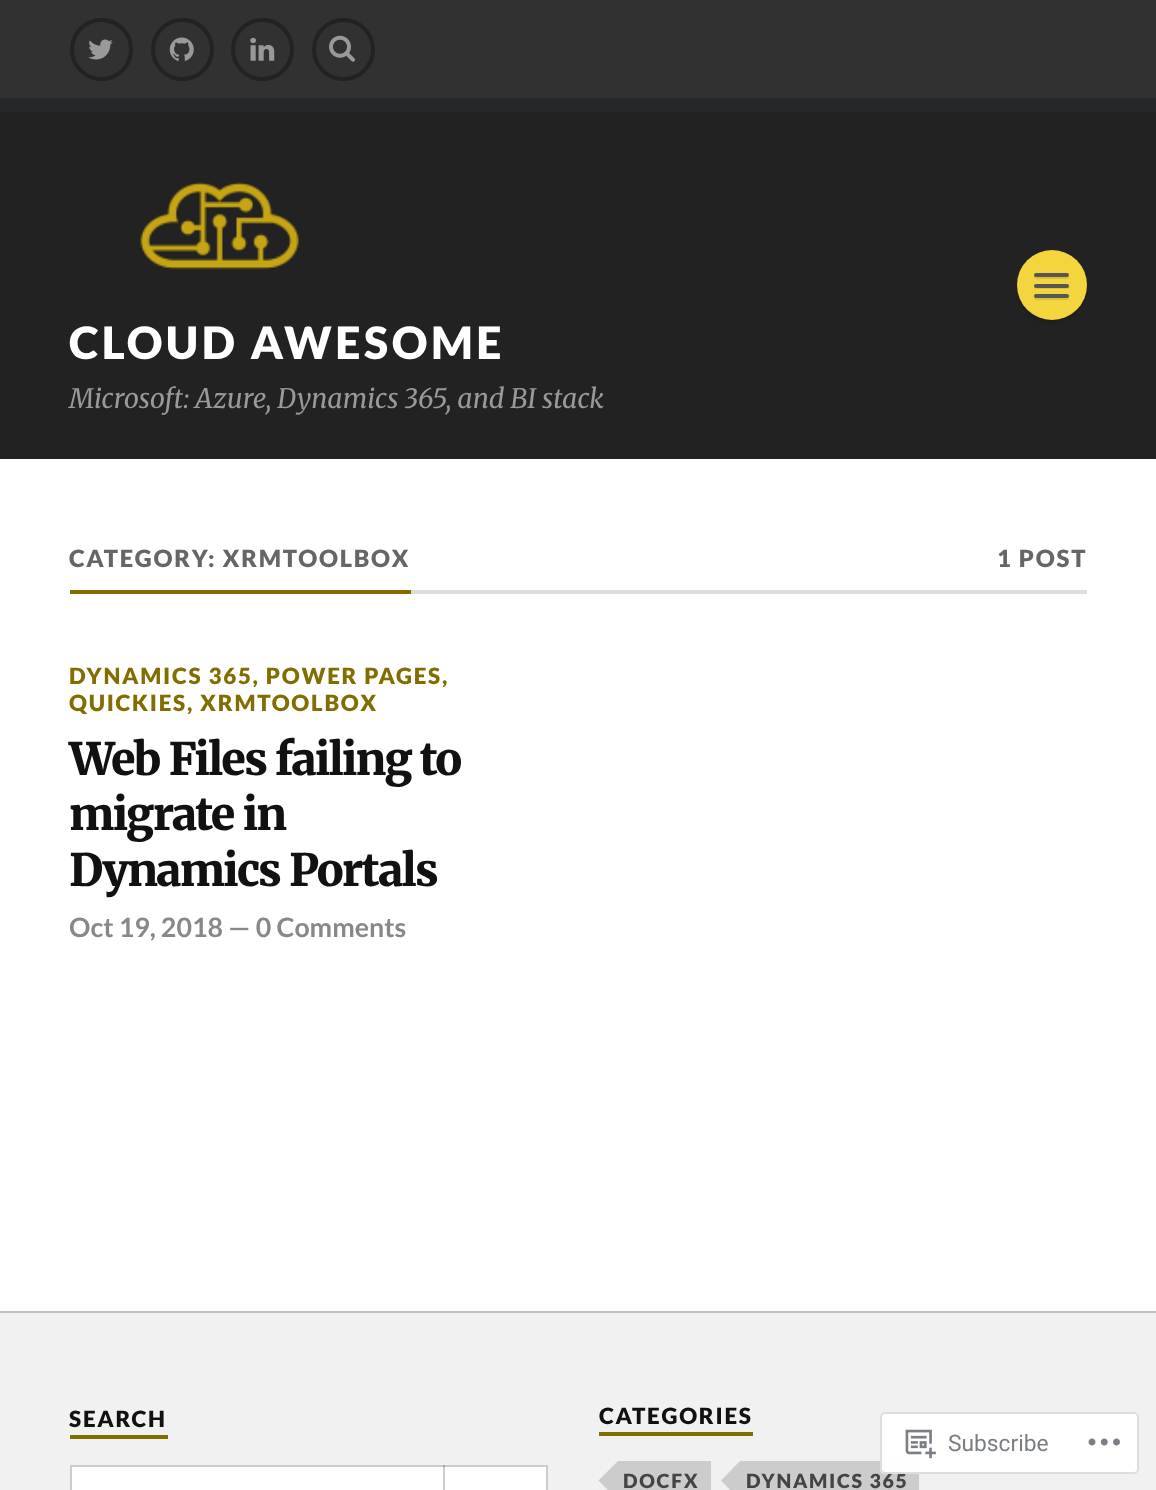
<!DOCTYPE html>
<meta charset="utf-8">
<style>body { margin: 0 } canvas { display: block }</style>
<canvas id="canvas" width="1156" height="1490"></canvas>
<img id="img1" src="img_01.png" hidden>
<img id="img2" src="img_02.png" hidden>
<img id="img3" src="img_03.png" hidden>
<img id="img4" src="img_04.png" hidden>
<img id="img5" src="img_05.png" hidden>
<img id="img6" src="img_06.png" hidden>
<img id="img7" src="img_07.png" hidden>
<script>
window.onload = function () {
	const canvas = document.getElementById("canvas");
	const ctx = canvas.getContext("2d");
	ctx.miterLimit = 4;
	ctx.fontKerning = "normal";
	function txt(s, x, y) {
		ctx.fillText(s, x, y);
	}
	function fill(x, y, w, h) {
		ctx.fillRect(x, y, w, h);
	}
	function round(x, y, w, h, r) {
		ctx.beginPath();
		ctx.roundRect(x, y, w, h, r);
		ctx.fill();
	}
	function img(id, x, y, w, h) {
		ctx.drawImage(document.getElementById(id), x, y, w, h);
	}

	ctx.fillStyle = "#FFFFFF";
	fill(0, 0, 1156, 1490);
	ctx.fillStyle = "#313131";
	fill(0, 0, 1156, 98);
	ctx.beginPath();
	ctx.arc(101.5, 49.5, 29.5, 0, Math.PI * 2);
	ctx.strokeStyle = "#222222";
	ctx.lineWidth = 4;
	ctx.stroke();
	img("img1", 88, 39, 25, 21);
	ctx.beginPath();
	ctx.arc(182.5, 49.5, 29.5, 0, Math.PI * 2);
	ctx.stroke();
	img("img2", 169, 37, 25, 24);
	ctx.beginPath();
	ctx.arc(262.5, 49.5, 29.5, 0, Math.PI * 2);
	ctx.stroke();
	img("img3", 250, 37, 25, 24);
	ctx.beginPath();
	ctx.arc(343.5, 49.5, 29.5, 0, Math.PI * 2);
	ctx.stroke();
	img("img4", 329, 35, 26, 27);
	ctx.fillStyle = "#222222";
	fill(0, 112, 1156, 347);
	ctx.fillStyle = "#26272B";
	fill(0, 98, 1156, 14);
	img("img5", 140, 182, 159, 88);
	ctx.fillStyle = "#1F1F1F";
	ctx.beginPath();
	ctx.moveTo(1017, 289);
	ctx.bezierCurveTo(1017, 296, 1019, 303, 1023, 309);
	ctx.bezierCurveTo(1044, 339, 1091, 321, 1087, 285);
	ctx.bezierCurveTo(1087, 292, 1085, 299, 1081, 305);
	ctx.bezierCurveTo(1063, 331, 1021, 321, 1017, 289);
	ctx.closePath();
	ctx.fill();
	ctx.fillStyle = "#F3D53E";
	ctx.beginPath();
	ctx.arc(1052, 285, 35, 0, Math.PI * 2);
	ctx.fill();
	ctx.fillStyle = "#DBC038";
	ctx.beginPath();
	ctx.moveTo(1034.5, 275.5);
	ctx.bezierCurveTo(1034, 276, 1034, 277, 1034, 277.5);
	ctx.bezierCurveTo(1034.5, 280, 1040, 279, 1041, 279);
	ctx.lineTo(1062, 279);
	ctx.bezierCurveTo(1062, 279, 1071, 280, 1068.5, 276);
	ctx.lineTo(1067.5, 276.5);
	ctx.lineTo(1036, 276.5);
	ctx.bezierCurveTo(1035.5, 276.5, 1035, 276, 1034.5, 275.5);
	ctx.closePath();
	ctx.fill();
	ctx.fillStyle = "#565656";
	round(1034, 273, 35, 4, 2);
	ctx.fillStyle = "#DBC038";
	ctx.beginPath();
	ctx.moveTo(1034.5, 286);
	ctx.bezierCurveTo(1033.5, 287, 1034, 288.5, 1035.5, 289);
	ctx.lineTo(1062, 289);
	ctx.bezierCurveTo(1062.5, 289, 1070.5, 290, 1069, 286.5);
	ctx.lineTo(1067.5, 287);
	ctx.bezierCurveTo(1065, 287.5, 1035.5, 287, 1035, 286.5);
	ctx.closePath();
	ctx.fill();
	ctx.fillStyle = "#565656";
	round(1034, 284, 35, 4, 2);
	ctx.fillStyle = "#DBC038";
	ctx.beginPath();
	ctx.moveTo(1034.5, 296.5);
	ctx.bezierCurveTo(1034, 297, 1034, 298, 1034, 298.5);
	ctx.bezierCurveTo(1034.5, 301, 1040, 300, 1041, 300);
	ctx.lineTo(1062, 300);
	ctx.bezierCurveTo(1062, 300, 1071, 301, 1068.5, 297);
	ctx.lineTo(1067.5, 297.5);
	ctx.lineTo(1036, 297.5);
	ctx.bezierCurveTo(1035.5, 297.5, 1035, 297, 1034.5, 296.5);
	ctx.closePath();
	ctx.fill();
	ctx.fillStyle = "#565656";
	round(1034, 294, 35, 4, 2);
	ctx.fillStyle = "#DDDDDD";
	fill(411, 590, 676, 4);
	ctx.fillStyle = "#826D01";
	fill(70, 590, 341, 4);
	ctx.fillStyle = "#F1F1F1";
	fill(0, 1313, 1156, 177);
	ctx.fillStyle = "#C1C1C1";
	fill(0, 1311, 1156, 2);
	ctx.fillStyle = "#826D01";
	fill(70, 1435, 98, 4);
	ctx.fillStyle = "#FFFFFF";
	ctx.beginPath();
	ctx.rect(71, 1466, 476, 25);
	ctx.fill();
	ctx.strokeStyle = "#CCCCCC";
	ctx.lineWidth = 2;
	ctx.stroke();
	ctx.fillStyle = "rgba(0, 0, 0, 0.2)";
	fill(443, 1465, 2, 25);
	ctx.fillStyle = "#826D01";
	fill(599, 1432, 154, 4);
	ctx.fillStyle = "#CCCCCC";
	fill(618, 1461, 93, 29);
	ctx.beginPath();
	ctx.moveTo(618, 1461);
	ctx.lineTo(618, 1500);
	ctx.lineTo(598.5, 1480.5);
	ctx.closePath();
	ctx.fill();
	fill(740, 1461, 179, 29);
	ctx.beginPath();
	ctx.moveTo(740, 1461);
	ctx.lineTo(740, 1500);
	ctx.lineTo(721, 1480.5);
	ctx.closePath();
	ctx.fill();
	ctx.letterSpacing = "3.5px";
	ctx.font = "900 44.6px Lato";
	ctx.fillStyle = "#FFFFFF";
	txt("CLOUD AWESOME", 69, 359);
	ctx.letterSpacing = "0px";
	ctx.font = "italic 300 26.75px Merriweather";
	ctx.fillStyle = "#999999";
	txt("Microsoft: Azure, Dynamics 365, and BI stack", 69, 408);
	ctx.letterSpacing = "1.75px";
	ctx.font = "900 23.75px Lato";
	ctx.fillStyle = "#666666";
	txt("CATEGORY: XRMTOOLBOX", 69, 567);
	txt("1 POST", 997, 567);
	ctx.font = "900 22.4px Lato";
	ctx.fillStyle = "#826D01";
	txt("DYNAMICS 365, POWER PAGES,", 69, 684);
	txt("QUICKIES, XRMTOOLBOX", 69, 711);
	ctx.letterSpacing = "-1.75px";
	ctx.font = "900 44.6px Merriweather";
	ctx.fillStyle = "#111111";
	txt("Web Files failing to", 69, 775);
	txt("migrate in", 69, 830);
	txt("Dynamics Portals", 69, 886);
	ctx.letterSpacing = "0px";
	ctx.font = "bold 26.75px Lato";
	ctx.fillStyle = "#888888";
	txt("Oct 19, 2018 — 0 Comments", 69, 937);
	ctx.letterSpacing = "1.75px";
	ctx.font = "900 22.4px Lato";
	ctx.fillStyle = "#111111";
	txt("SEARCH", 69, 1427);
	txt("CATEGORIES", 599, 1424);
	ctx.font = "900 19.5px Lato";
	ctx.fillStyle = "#444444";
	txt("DOCFX", 623, 1488);
	txt("DYNAMICS 365", 746, 1488);
	ctx.fillStyle = "rgba(255, 255, 255, 0.98)";
	round(880, 1412, 259, 62, 5);
	ctx.beginPath();
	ctx.roundRect(881, 1413, 257, 60, 4);
	ctx.strokeStyle = "rgba(220, 220, 222, 0.98)";
	ctx.stroke();
	img("img6", 905, 1429, 31, 30);
	ctx.letterSpacing = "0px";
	ctx.font = "22.75px Roboto";
	ctx.fillStyle = "#7A7E84";
	txt("Subscribe", 948, 1451);
	img("img7", 1088, 1438, 32, 8);
};
</script>
